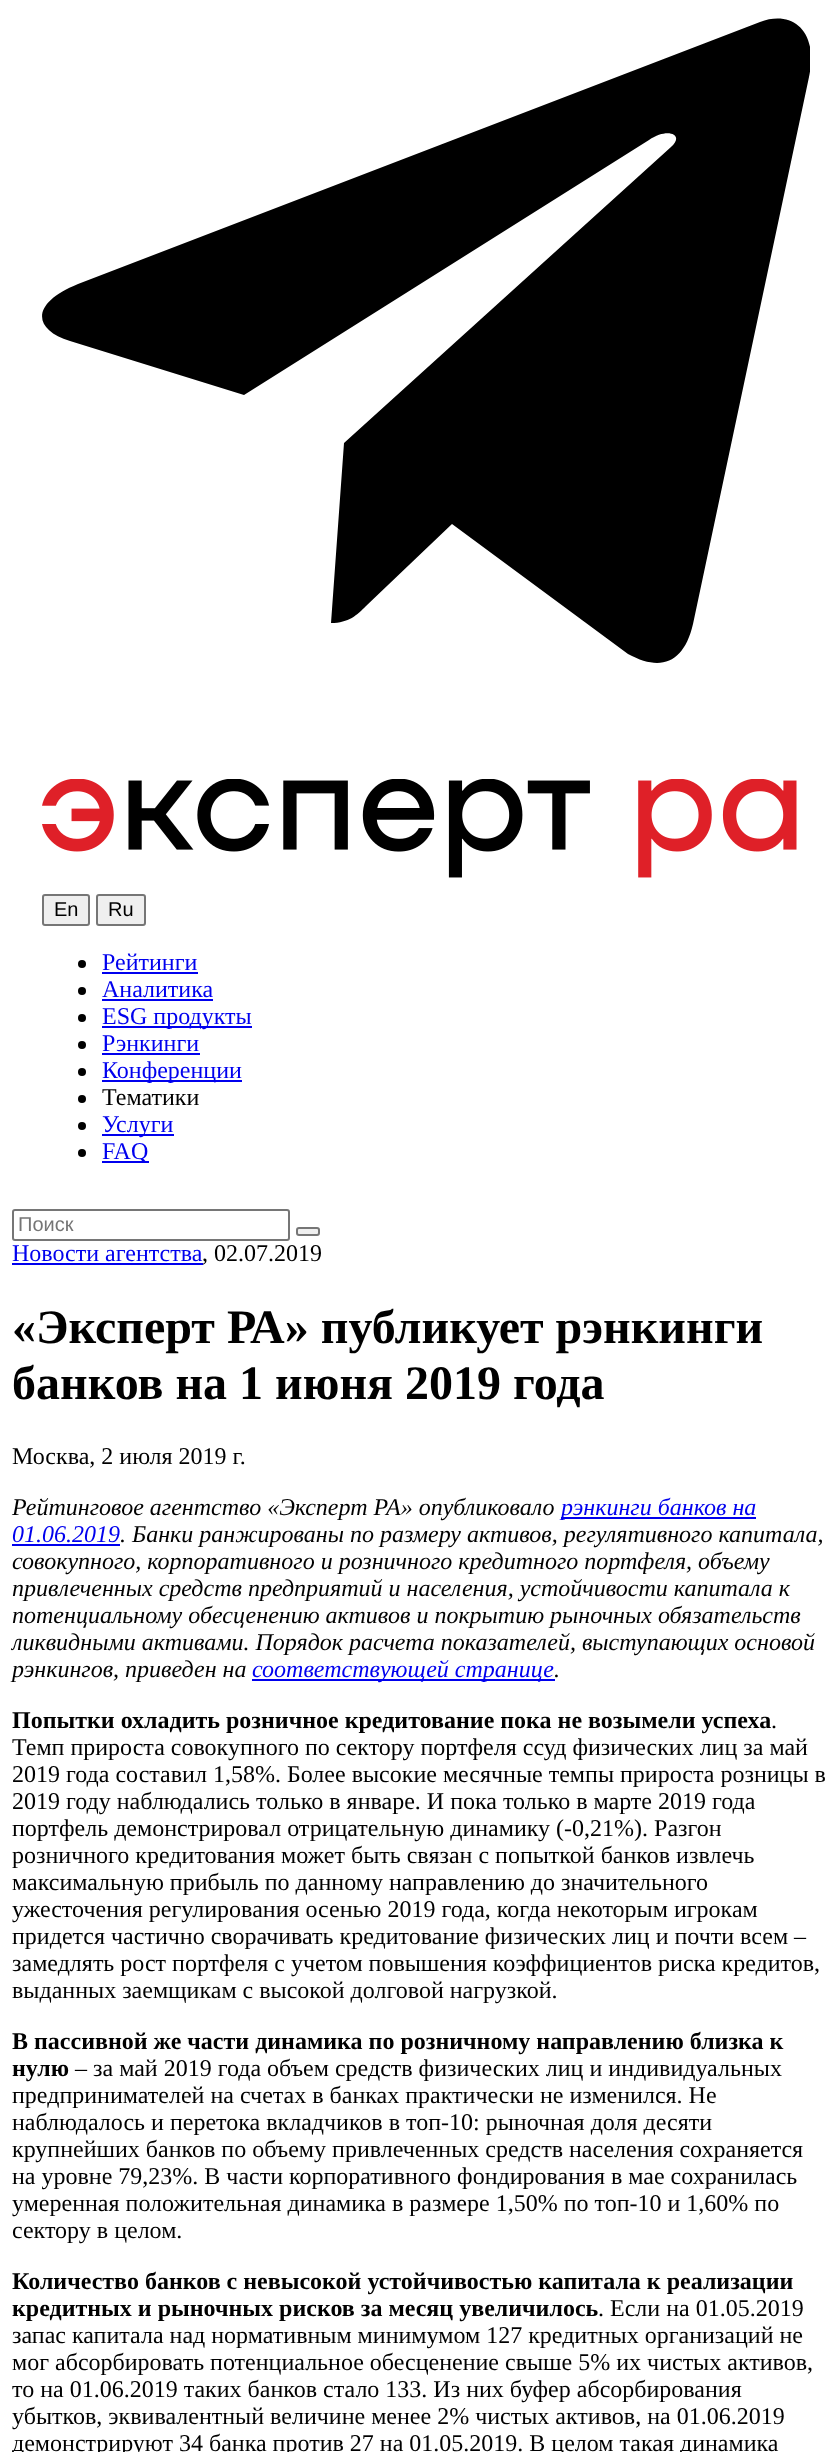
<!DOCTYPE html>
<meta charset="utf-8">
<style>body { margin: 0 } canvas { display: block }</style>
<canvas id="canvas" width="838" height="2452"></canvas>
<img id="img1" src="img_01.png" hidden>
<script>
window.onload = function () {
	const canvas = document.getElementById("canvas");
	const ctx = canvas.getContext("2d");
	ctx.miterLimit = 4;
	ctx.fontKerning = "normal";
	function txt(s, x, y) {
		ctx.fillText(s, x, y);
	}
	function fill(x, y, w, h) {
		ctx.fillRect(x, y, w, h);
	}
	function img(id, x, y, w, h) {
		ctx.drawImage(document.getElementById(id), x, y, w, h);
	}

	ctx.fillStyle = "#FFFFFF";
	fill(0, 0, 838, 2452);
	ctx.save();
	ctx.beginPath();
	ctx.rect(42, 0, 768, 725);
	ctx.clip();
	ctx.fillStyle = "#000000";
	ctx.beginPath();
	ctx.moveTo(809, 77);
	ctx.lineTo(693, 624);
	ctx.bezierCurveTo(684, 663, 661, 672, 628, 654);
	ctx.lineTo(452, 524);
	ctx.lineTo(366, 606);
	ctx.bezierCurveTo(357, 615, 349, 623, 331, 623);
	ctx.lineTo(344, 443);
	ctx.lineTo(671, 147);
	ctx.bezierCurveTo(685, 135, 668, 127, 649, 140);
	ctx.lineTo(244, 395);
	ctx.lineTo(70, 341);
	ctx.bezierCurveTo(32, 329, 31, 303, 78, 284);
	ctx.lineTo(760, 22);
	ctx.bezierCurveTo(791, 10, 819, 29, 809, 77);
	ctx.closePath();
	ctx.fill();
	ctx.restore();
	img("img1", 42, 779, 755, 99);
	ctx.fillStyle = "#EFEFEF";
	ctx.beginPath();
	ctx.roundRect(43, 895, 46, 30, 2);
	ctx.fill();
	ctx.strokeStyle = "#767676";
	ctx.lineWidth = 2;
	ctx.stroke();
	ctx.beginPath();
	ctx.roundRect(97, 895, 48, 30, 2);
	ctx.fill();
	ctx.stroke();
	ctx.fillStyle = "#000000";
	ctx.beginPath();
	ctx.arc(82, 964, 4, 0, Math.PI * 2);
	ctx.fill();
	ctx.fillStyle = "#0000EE";
	fill(102, 972, 96, 2);
	ctx.fillStyle = "#000000";
	ctx.beginPath();
	ctx.arc(82, 991, 4, 0, Math.PI * 2);
	ctx.fill();
	ctx.fillStyle = "#0000EE";
	fill(102, 999, 111, 2);
	ctx.fillStyle = "#000000";
	ctx.beginPath();
	ctx.arc(82, 1018, 4, 0, Math.PI * 2);
	ctx.fill();
	ctx.fillStyle = "#0000EE";
	fill(102, 1026, 150, 2);
	ctx.fillStyle = "#000000";
	ctx.beginPath();
	ctx.arc(82, 1045, 4, 0, Math.PI * 2);
	ctx.fill();
	ctx.fillStyle = "#0000EE";
	fill(102, 1053, 98, 2);
	ctx.fillStyle = "#000000";
	ctx.beginPath();
	ctx.arc(82, 1072, 4, 0, Math.PI * 2);
	ctx.fill();
	ctx.fillStyle = "#0000EE";
	fill(102, 1080, 140, 2);
	ctx.fillStyle = "#000000";
	ctx.beginPath();
	ctx.arc(82, 1099, 4, 0, Math.PI * 2);
	ctx.fill();
	ctx.beginPath();
	ctx.arc(82, 1126, 4, 0, Math.PI * 2);
	ctx.fill();
	ctx.fillStyle = "#0000EE";
	fill(102, 1134, 72, 2);
	ctx.fillStyle = "#000000";
	ctx.beginPath();
	ctx.arc(82, 1153, 4, 0, Math.PI * 2);
	ctx.fill();
	ctx.fillStyle = "#0000EE";
	fill(102, 1161, 47, 2);
	ctx.beginPath();
	ctx.roundRect(13, 1210, 276, 30, 2);
	ctx.stroke();
	ctx.fillStyle = "#EFEFEF";
	ctx.beginPath();
	ctx.roundRect(297, 1228, 22, 7, 2);
	ctx.fill();
	ctx.stroke();
	ctx.fillStyle = "#0000EE";
	fill(12, 1263, 191, 2);
	fill(561, 1517, 195, 2);
	fill(12, 1544, 108, 2);
	fill(252, 1679, 303, 2);
	ctx.font = "20px Liberation Sans";
	ctx.fillStyle = "#000000";
	txt("En", 54, 916);
	txt("Ru", 108, 916);
	ctx.font = "24px Liberation Serif";
	ctx.fillStyle = "#0000EE";
	txt("Рейтинги", 102, 970);
	txt("Аналитика", 102, 997);
	txt("ESG продукты", 102, 1024);
	txt("Рэнкинги", 102, 1051);
	txt("Конференции", 102, 1078);
	ctx.fillStyle = "#000000";
	txt("Тематики", 102, 1105);
	ctx.fillStyle = "#0000EE";
	txt("Услуги", 102, 1132);
	txt("FAQ", 102, 1159);
	ctx.font = "20px Liberation Sans";
	ctx.fillStyle = "#757575";
	txt("Поиск", 18, 1231);
	ctx.font = "24px Liberation Serif";
	ctx.fillStyle = "#0000EE";
	txt("Новости агентства", 12, 1261);
	ctx.fillStyle = "#000000";
	txt(", 02.07.2019", 202, 1261);
	ctx.font = "bold 48px Liberation Serif";
	txt("«Эксперт РА» публикует рэнкинги", 12, 1343);
	txt("банков на 1 июня 2019 года", 12, 1399);
	ctx.font = "24px Liberation Serif";
	txt("Москва, 2 июля 2019 г.", 12, 1464);
	ctx.font = "italic 24px Liberation Serif";
	txt("Рейтинговое агентство «Эксперт РА» опубликовало", 12, 1515);
	ctx.fillStyle = "#0000EE";
	txt("рэнкинги банков на", 561, 1515);
	txt("01.06.2019", 12, 1542);
	ctx.fillStyle = "#000000";
	txt(". Банки ранжированы по размеру активов, регулятивного капитала,", 120, 1542);
	txt("совокупного, корпоративного и розничного кредитного портфеля, объему", 12, 1569);
	txt("привлеченных средств предприятий и населения, устойчивости капитала к", 12, 1596);
	txt("потенциальному обесценению активов и покрытию рыночных обязательств", 12, 1623);
	txt("ликвидными активами. Порядок расчета показателей, выступающих основой", 12, 1650);
	txt("рэнкингов, приведен на", 12, 1677);
	ctx.fillStyle = "#0000EE";
	txt("соответствующей странице", 252, 1677);
	ctx.fillStyle = "#000000";
	txt(".", 554, 1677);
	ctx.font = "bold 24px Liberation Serif";
	txt("Попытки охладить розничное кредитование пока не возымели успеха", 12, 1728);
	ctx.font = "24px Liberation Serif";
	txt(".", 771, 1728);
	txt("Темп прироста совокупного по сектору портфеля ссуд физических лиц за май", 12, 1755);
	txt("2019 года составил 1,58%. Более высокие месячные темпы прироста розницы в", 12, 1782);
	txt("2019 году наблюдались только в январе. И пока только в марте 2019 года", 12, 1809);
	txt("портфель демонстрировал отрицательную динамику (-0,21%). Разгон", 12, 1836);
	txt("розничного кредитования может быть связан с попыткой банков извлечь", 12, 1863);
	txt("максимальную прибыль по данному направлению до значительного", 12, 1890);
	txt("ужесточения регулирования осенью 2019 года, когда некоторым игрокам", 12, 1917);
	txt("придется частично сворачивать кредитование физических лиц и почти всем –", 12, 1944);
	txt("замедлять рост портфеля с учетом повышения коэффициентов риска кредитов,", 12, 1971);
	txt("выданных заемщикам с высокой долговой нагрузкой.", 12, 1998);
	ctx.font = "bold 24px Liberation Serif";
	txt("В пассивной же части динамика по розничному направлению близка к", 12, 2049);
	txt("нулю", 12, 2076);
	ctx.font = "24px Liberation Serif";
	txt("– за май 2019 года объем средств физических лиц и индивидуальных", 75, 2076);
	txt("предпринимателей на счетах в банках практически не изменился. Не", 12, 2103);
	txt("наблюдалось и перетока вкладчиков в топ-10: рыночная доля десяти", 12, 2130);
	txt("крупнейших банков по объему привлеченных средств населения сохраняется", 12, 2157);
	txt("на уровне 79,23%. В части корпоративного фондирования в мае сохранилась", 12, 2184);
	txt("умеренная положительная динамика в размере 1,50% по топ-10 и 1,60% по", 12, 2211);
	txt("сектору в целом.", 12, 2238);
	ctx.font = "bold 24px Liberation Serif";
	txt("Количество банков с невысокой устойчивостью капитала к реализации", 12, 2289);
	txt("кредитных и рыночных рисков за месяц увеличилось", 12, 2316);
	ctx.font = "24px Liberation Serif";
	txt(". Если на 01.05.2019", 598, 2316);
	txt("запас капитала над нормативным минимумом 127 кредитных организаций не", 12, 2343);
	txt("мог абсорбировать потенциальное обесценение свыше 5% их чистых активов,", 12, 2370);
	txt("то на 01.06.2019 таких банков стало 133. Из них буфер абсорбирования", 12, 2397);
	txt("убытков, эквивалентный величине менее 2% чистых активов, на 01.06.2019", 12, 2424);
	txt("демонстрируют 34 банка против 27 на 01.05.2019. В целом такая динамика", 12, 2451);
};
</script>
